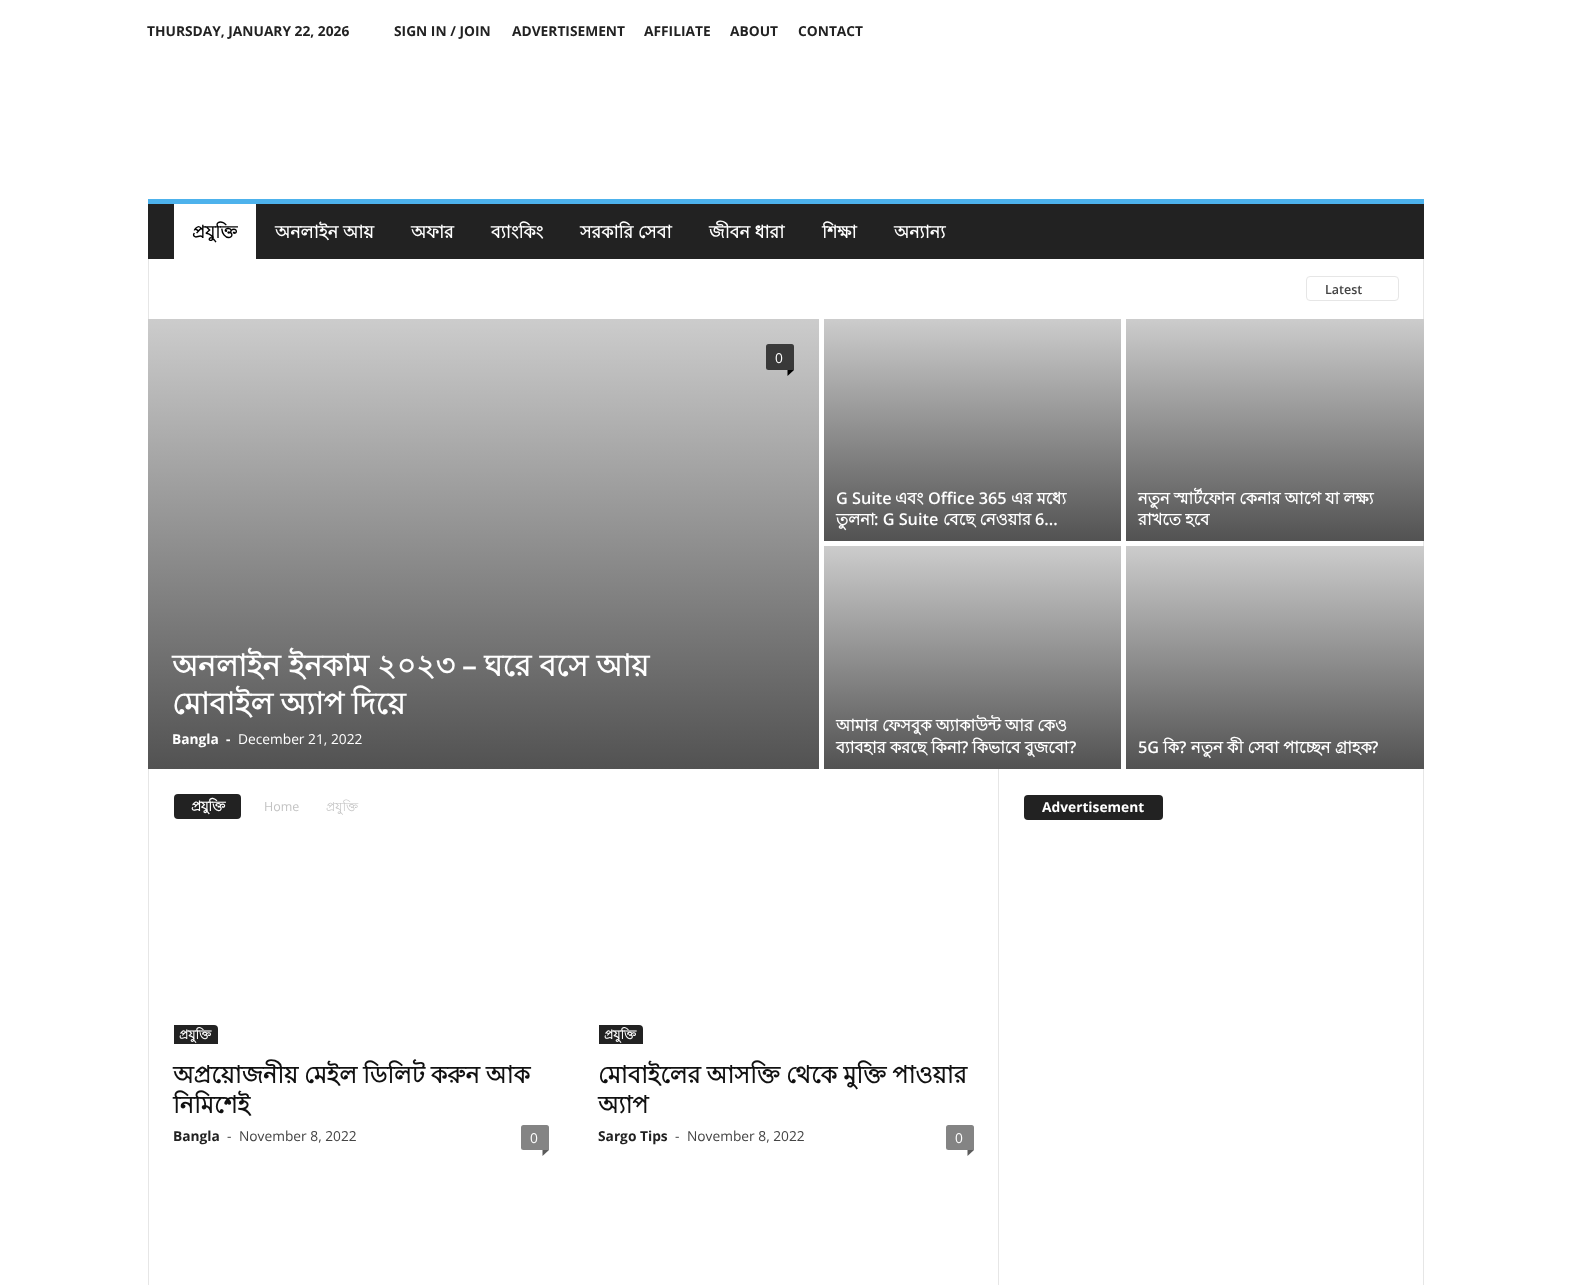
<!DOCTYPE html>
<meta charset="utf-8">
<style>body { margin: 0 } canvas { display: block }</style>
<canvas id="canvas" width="1570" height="1285"></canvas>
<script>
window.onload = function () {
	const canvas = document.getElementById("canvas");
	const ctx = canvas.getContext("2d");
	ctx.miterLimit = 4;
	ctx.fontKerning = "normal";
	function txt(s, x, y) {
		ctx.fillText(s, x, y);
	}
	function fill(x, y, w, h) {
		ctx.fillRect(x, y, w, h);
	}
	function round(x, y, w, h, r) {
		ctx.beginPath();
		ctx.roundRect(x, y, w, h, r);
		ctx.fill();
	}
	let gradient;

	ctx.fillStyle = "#FFFFFF";
	fill(0, 0, 1570, 1285);
	ctx.fillStyle = "#222222";
	fill(148, 204, 1276, 55);
	ctx.fillStyle = "#4DB2EC";
	fill(148, 199, 1276, 5);
	ctx.fillStyle = "#FFFFFF";
	fill(174, 204, 82, 55);
	ctx.fillStyle = "#E6E6E6";
	fill(148, 259, 1, 60);
	ctx.beginPath();
	ctx.roundRect(1306.5, 276.5, 92, 24, 3.5);
	ctx.strokeStyle = "#E6E6E6";
	ctx.stroke();
	fill(1423, 259, 1, 60);
	fill(148, 769, 1, 516);
	gradient = ctx.createLinearGradient(483, 319, 483, 769);
	gradient.addColorStop(0, "#CCCCCC");
	gradient.addColorStop(1, "#525252");
	ctx.fillStyle = gradient;
	fill(148, 319, 671, 450);
	ctx.fillStyle = "rgba(0, 0, 0, 0.7)";
	ctx.beginPath();
	ctx.roundRect(766, 344, 28, 26, [2.5, 2.5, 0, 2.5]);
	ctx.fill();
	ctx.fillStyle = "#000000";
	ctx.beginPath();
	ctx.moveTo(787.5, 370);
	ctx.lineTo(794, 370);
	ctx.lineTo(787.5, 376);
	ctx.closePath();
	ctx.fill();
	gradient = ctx.createLinearGradient(973, 319, 973, 541);
	gradient.addColorStop(0, "#CCCCCC");
	gradient.addColorStop(1, "#525252");
	ctx.fillStyle = gradient;
	fill(824, 319, 297, 222);
	gradient = ctx.createLinearGradient(1275, 319, 1275, 541);
	gradient.addColorStop(0, "#CCCCCC");
	gradient.addColorStop(1, "#525252");
	ctx.fillStyle = gradient;
	fill(1126, 319, 298, 222);
	gradient = ctx.createLinearGradient(973, 546, 973, 769);
	gradient.addColorStop(0, "#CCCCCC");
	gradient.addColorStop(1, "#525252");
	ctx.fillStyle = gradient;
	fill(824, 546, 297, 223);
	ctx.fillStyle = "#E6E6E6";
	fill(1423, 541, 1, 744);
	gradient = ctx.createLinearGradient(1275, 546, 1275, 769);
	gradient.addColorStop(0, "#CCCCCC");
	gradient.addColorStop(1, "#525252");
	ctx.fillStyle = gradient;
	fill(1126, 546, 298, 223);
	ctx.fillStyle = "#222222";
	round(174, 794, 67, 25, 4);
	ctx.beginPath();
	ctx.roundRect(174, 1025, 44, 19, [0, 4, 0, 0]);
	ctx.fill();
	ctx.fillStyle = "#848484";
	ctx.beginPath();
	ctx.roundRect(521, 1125, 28, 25, [2.5, 2.5, 0, 2.5]);
	ctx.fill();
	ctx.fillStyle = "#5B5B5B";
	ctx.beginPath();
	ctx.moveTo(542.5, 1150);
	ctx.lineTo(549, 1150);
	ctx.lineTo(542.5, 1156);
	ctx.closePath();
	ctx.fill();
	ctx.fillStyle = "#222222";
	ctx.beginPath();
	ctx.roundRect(599, 1025, 44, 19, [0, 4, 0, 0]);
	ctx.fill();
	ctx.fillStyle = "#848484";
	ctx.beginPath();
	ctx.roundRect(946, 1125, 28, 25, [2.5, 2.5, 0, 2.5]);
	ctx.fill();
	ctx.fillStyle = "#5B5B5B";
	ctx.beginPath();
	ctx.moveTo(967.5, 1150);
	ctx.lineTo(974, 1150);
	ctx.lineTo(967.5, 1156);
	ctx.closePath();
	ctx.fill();
	ctx.fillStyle = "#E6E6E6";
	fill(998, 769, 1, 516);
	ctx.fillStyle = "#222222";
	round(1024, 795, 139, 25, 4);
	ctx.font = "bold 13.75px Open Sans";
	txt("THURSDAY, JANUARY 22, 2026", 147, 36);
	txt("SIGN IN / JOIN", 394, 36);
	txt("ADVERTISEMENT", 512, 36);
	txt("AFFILIATE", 644, 36);
	txt("ABOUT", 730, 36);
	txt("CONTACT", 798, 36);
	ctx.font = "bold 17.5px Lohit Bengali";
	ctx.fillStyle = "#000000";
	txt("প্রযুক্তি", 192, 238);
	ctx.fillStyle = "#FFFFFF";
	txt("অনলাইন আয়", 275, 238);
	txt("অফার", 411, 238);
	txt("ব্যাংকিং", 491, 238);
	txt("সরকারি সেবা", 580, 238);
	txt("জীবন ধারা", 709, 238);
	txt("শিক্ষা", 822, 238);
	txt("অন্যান্য", 894, 238);
	ctx.font = "600 12.5px Open Sans";
	ctx.fillStyle = "#444444";
	txt("Latest", 1325, 294);
	ctx.font = "13.75px Open Sans";
	ctx.fillStyle = "#FFFFFF";
	txt("0", 775, 363);
	ctx.font = "bold 30px Lohit Bengali";
	txt("অনলাইন ইনকাম ২০২৩", 172, 676);
	ctx.font = "600 30px Open Sans";
	txt("–", 462, 676);
	ctx.font = "bold 30px Lohit Bengali";
	txt("ঘরে বসে আয়", 484, 676);
	ctx.wordSpacing = "-1px";
	txt("মোবাইল অ্যাপ দিয়ে", 172, 714);
	ctx.wordSpacing = "0px";
	ctx.font = "bold 13.75px Open Sans";
	txt("Bangla", 172, 744);
	txt("-", 226, 744);
	ctx.font = "13.75px Open Sans";
	txt("December 21, 2022", 238, 744);
	ctx.font = "600 16.25px Open Sans";
	txt("G Suite", 836, 504);
	ctx.font = "bold 16.25px Lohit Bengali";
	txt("এবং", 895, 504);
	ctx.font = "600 16.25px Open Sans";
	txt("Office 365", 928, 504);
	ctx.font = "bold 16.25px Lohit Bengali";
	txt("এর মধ্যে", 1011, 504);
	txt("তুলনা", 836, 525);
	ctx.font = "600 16.25px Open Sans";
	txt(": G Suite", 874, 525);
	ctx.font = "bold 16.25px Lohit Bengali";
	txt("বেছে নেওয়ার", 943, 525);
	ctx.font = "600 16.25px Open Sans";
	txt("6...", 1035, 525);
	ctx.wordSpacing = "-0.25px";
	ctx.font = "bold 16.25px Lohit Bengali";
	txt("নতুন স্মার্টফোন কেনার আগে যা লক্ষ্য", 1138, 504);
	txt("রাখতে হবে", 1138, 525);
	txt("আমার ফেসবুক অ্যাকাউন্ট আর কেও", 836, 731);
	txt("ব্যাবহার করছে কিনা", 836, 753);
	ctx.wordSpacing = "0px";
	ctx.font = "600 16.25px Open Sans";
	txt("?", 961, 753);
	ctx.wordSpacing = "-0.25px";
	ctx.font = "bold 16.25px Lohit Bengali";
	txt("কিভাবে বুজবো", 972, 753);
	ctx.wordSpacing = "0px";
	ctx.font = "600 16.25px Open Sans";
	txt("?", 1069, 753);
	txt("5G", 1138, 753);
	ctx.font = "bold 16.25px Lohit Bengali";
	txt("কি", 1163, 753);
	ctx.font = "600 16.25px Open Sans";
	txt("?", 1179, 753);
	ctx.font = "bold 16.25px Lohit Bengali";
	txt("নতুন কী সেবা পাচ্ছেন গ্রাহক", 1191, 753);
	ctx.font = "600 16.25px Open Sans";
	txt("?", 1371, 753);
	ctx.letterSpacing = "-0.5px";
	ctx.font = "bold 13.75px Lohit Bengali";
	txt("প্রযুক্তি", 191, 811);
	ctx.letterSpacing = "0px";
	ctx.font = "12.5px Open Sans";
	ctx.fillStyle = "#C3C3C3";
	txt("Home", 264, 811);
	ctx.font = "12.5px Lohit Bengali";
	txt("প্রযুক্তি", 326, 811);
	ctx.font = "bold 12.5px Lohit Bengali";
	ctx.fillStyle = "#FFFFFF";
	txt("প্রযুক্তি", 179, 1039);
	ctx.wordSpacing = "-0.5px";
	ctx.font = "bold 23.75px Lohit Bengali";
	ctx.fillStyle = "#111111";
	txt("অপ্রয়োজনীয় মেইল ডিলিট করুন আক", 173, 1083);
	ctx.wordSpacing = "0px";
	txt("নিমিশেই", 173, 1113);
	ctx.font = "bold 13.75px Open Sans";
	ctx.fillStyle = "#222222";
	txt("Bangla", 173, 1141);
	ctx.font = "13.75px Open Sans";
	ctx.fillStyle = "#444444";
	txt("-", 227, 1141);
	txt("November 8, 2022", 239, 1141);
	ctx.fillStyle = "#FFFFFF";
	txt("0", 530, 1143);
	ctx.font = "bold 12.5px Lohit Bengali";
	txt("প্রযুক্তি", 604, 1039);
	ctx.wordSpacing = "-0.5px";
	ctx.font = "bold 23.75px Lohit Bengali";
	ctx.fillStyle = "#111111";
	txt("মোবাইলের আসক্তি থেকে মুক্তি পাওয়ার", 598, 1083);
	ctx.wordSpacing = "0px";
	txt("অ্যাপ", 598, 1113);
	ctx.font = "bold 13.75px Open Sans";
	ctx.fillStyle = "#222222";
	txt("Sargo Tips", 598, 1141);
	ctx.font = "13.75px Open Sans";
	ctx.fillStyle = "#444444";
	txt("-", 675, 1141);
	txt("November 8, 2022", 687, 1141);
	ctx.fillStyle = "#FFFFFF";
	txt("0", 955, 1143);
	ctx.font = "bold 13.75px Open Sans";
	txt("Advertisement", 1042, 812);
};
</script>
